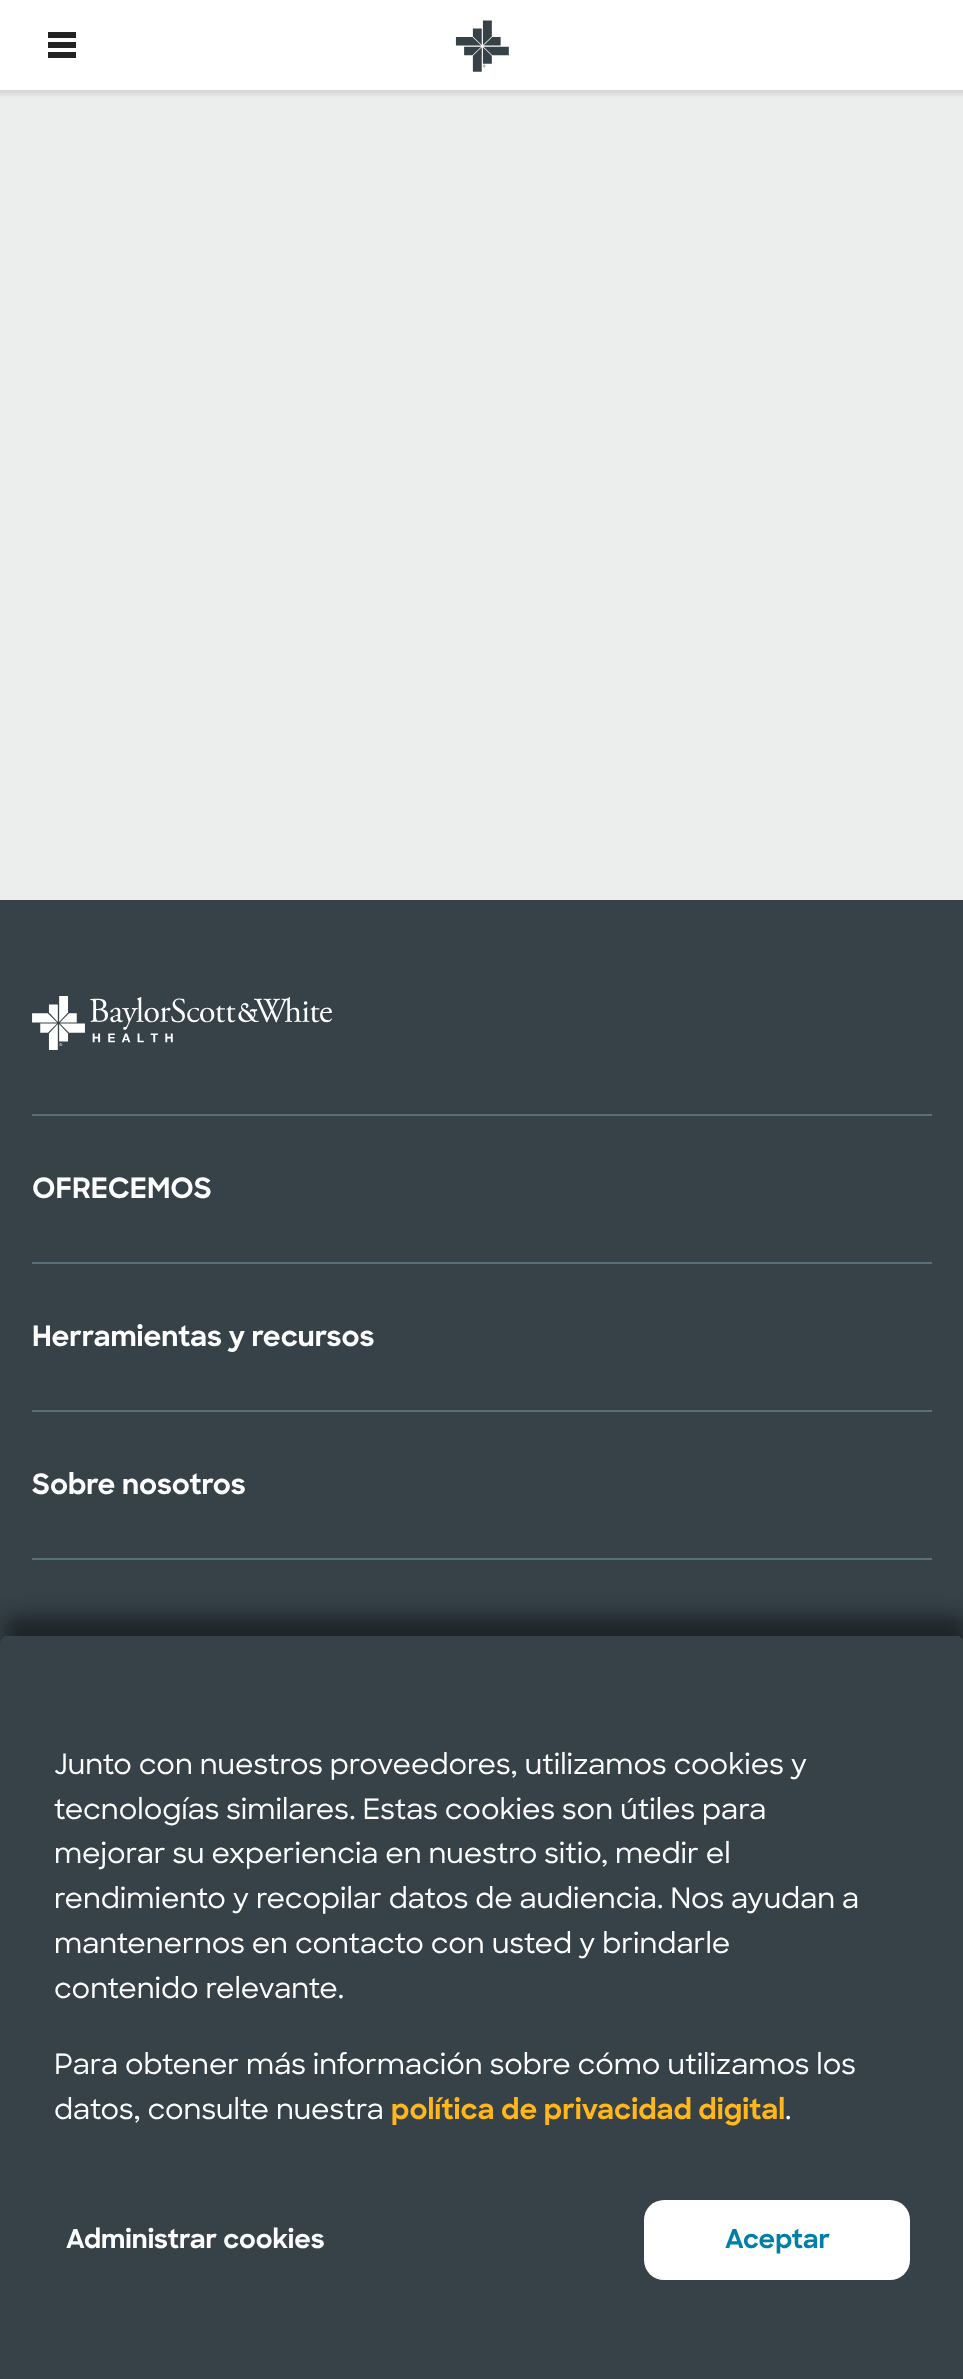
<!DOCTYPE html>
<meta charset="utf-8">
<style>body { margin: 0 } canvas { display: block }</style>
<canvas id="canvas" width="963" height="2379"></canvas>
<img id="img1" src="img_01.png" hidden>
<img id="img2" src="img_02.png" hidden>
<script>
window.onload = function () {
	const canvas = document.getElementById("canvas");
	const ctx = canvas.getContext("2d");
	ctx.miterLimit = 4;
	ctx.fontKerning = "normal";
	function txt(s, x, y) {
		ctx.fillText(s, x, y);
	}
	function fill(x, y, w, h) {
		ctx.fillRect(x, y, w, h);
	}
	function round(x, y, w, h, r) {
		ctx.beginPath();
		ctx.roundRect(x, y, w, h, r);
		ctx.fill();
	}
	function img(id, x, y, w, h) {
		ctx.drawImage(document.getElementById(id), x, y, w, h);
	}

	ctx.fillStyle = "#ECEDED";
	fill(0, 0, 963, 2379);
	ctx.fillStyle = "rgba(0, 0, 0, 0.11)";
	ctx.filter = "blur(3px)";
	ctx.beginPath();
	ctx.rect(-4, -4, 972, 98);
	ctx.fill();
	ctx.filter = "none";
	ctx.fillStyle = "#FFFFFF";
	fill(0, 0, 963, 90);
	ctx.fillStyle = "#222222";
	fill(48, 42, 28, 6);
	fill(48, 32, 28, 6);
	fill(48, 52, 28, 6);
	img("img1", 455, 20, 54, 52);
	ctx.fillStyle = "#364248";
	fill(0, 900, 963, 1479);
	img("img2", 32, 996, 300, 54);
	ctx.fillStyle = "#586F78";
	fill(32, 1114, 900, 2);
	fill(32, 1262, 900, 2);
	fill(32, 1410, 900, 2);
	fill(32, 1558, 900, 2);
	ctx.fillStyle = "rgba(0, 0, 0, 0.44)";
	ctx.filter = "blur(10px)";
	ctx.beginPath();
	ctx.roundRect(4, 1616, 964, 744, 8);
	ctx.fill();
	ctx.filter = "none";
	ctx.fillStyle = "#364248";
	round(0, 1636, 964, 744, 8);
	fill(4, 1636, 956, 1);
	ctx.fillStyle = "#FFFFFF";
	round(644, 2200, 266, 80, 20);
	ctx.font = "bold 28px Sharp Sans";
	txt("OFRECEMOS", 32, 1198);
	txt("Herramientas y recursos", 32, 1346);
	txt("Sobre nosotros", 32, 1494);
	ctx.font = "500 28px Sharp Sans";
	txt("Junto con nuestros proveedores, utilizamos cookies y", 54, 1774);
	txt("tecnologías similares. Estas cookies son útiles para", 54, 1819);
	txt("mejorar su experiencia en nuestro sitio, medir el", 54, 1863);
	txt("rendimiento y recopilar datos de audiencia. Nos ayudan a", 54, 1908);
	txt("mantenernos en contacto con usted y brindarle", 54, 1953);
	txt("contenido relevante.", 54, 1998);
	txt("Para obtener más información sobre cómo utilizamos los", 54, 2074);
	txt("datos, consulte nuestra", 54, 2119);
	ctx.font = "bold 28px Sharp Sans";
	ctx.fillStyle = "#FFB71B";
	txt("política de privacidad digital", 391, 2119);
	ctx.font = "500 28px Sharp Sans";
	ctx.fillStyle = "#FFFFFF";
	txt(".", 785, 2119);
	ctx.font = "bold 26px Sharp Sans";
	txt("Administrar cookies", 66, 2248);
	ctx.fillStyle = "#007FA9";
	txt("Aceptar", 725, 2248);
};
</script>
